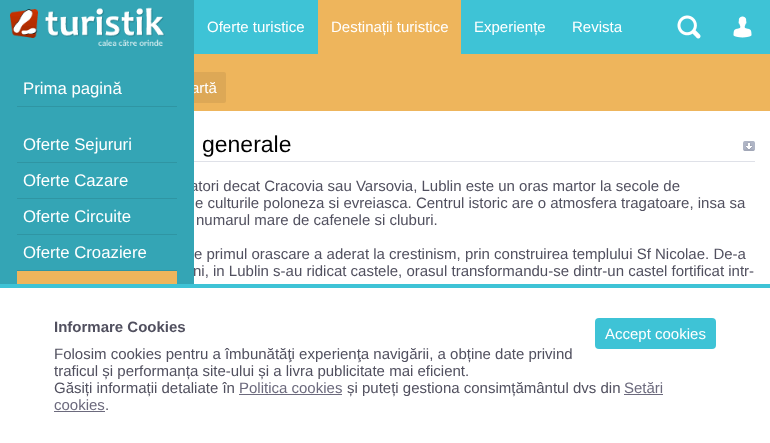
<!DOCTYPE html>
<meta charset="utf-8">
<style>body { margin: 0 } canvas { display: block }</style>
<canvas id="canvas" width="770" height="443"></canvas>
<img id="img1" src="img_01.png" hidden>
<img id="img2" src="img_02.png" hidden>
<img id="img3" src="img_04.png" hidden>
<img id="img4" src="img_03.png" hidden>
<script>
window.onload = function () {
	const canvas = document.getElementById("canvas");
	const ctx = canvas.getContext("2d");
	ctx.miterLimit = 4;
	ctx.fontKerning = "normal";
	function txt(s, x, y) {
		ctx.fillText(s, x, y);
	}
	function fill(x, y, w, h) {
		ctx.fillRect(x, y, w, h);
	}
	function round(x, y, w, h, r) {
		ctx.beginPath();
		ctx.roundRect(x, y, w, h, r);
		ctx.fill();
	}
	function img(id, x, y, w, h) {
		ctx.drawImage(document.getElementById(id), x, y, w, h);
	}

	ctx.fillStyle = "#FFFFFF";
	fill(0, 0, 770, 443);
	ctx.fillStyle = "#3EC3D6";
	fill(194, 0, 576, 54);
	ctx.fillStyle = "#EEB55C";
	fill(318, 0, 143, 54);
	img("img1", 677, 15, 24, 24);
	img("img2", 733, 16, 19, 22);
	fill(194, 54, 576, 57);
	ctx.fillStyle = "#DDA856";
	round(170, 72, 56, 31, 2);
	img("img3", 743, 141, 12, 10);
	ctx.fillStyle = "#DFE1E8";
	fill(194, 161, 561, 1);
	ctx.fillStyle = "#3EC3D6";
	fill(0, 284, 770, 4);
	round(595, 318, 121, 31, 4);
	ctx.fillStyle = "#6C6A7D";
	fill(239, 394, 103, 1);
	fill(624, 394, 39, 1);
	fill(54, 411, 51, 1);
	ctx.font = "15px Liberation Sans";
	ctx.fillStyle = "#FFFFFF";
	txt("Oferte turistice", 207, 32);
	txt("Destinații turistice", 331, 32);
	txt("Experiențe", 474, 32);
	txt("Revista", 572, 32);
	txt("artă", 191, 93);
	ctx.font = "23px Liberation Sans";
	ctx.fillStyle = "#000000";
	txt("generale", 202, 152);
	ctx.font = "15px Liberation Sans";
	ctx.fillStyle = "#51505F";
	txt("atori decat Cracovia sau Varsovia, Lublin este un oras martor la secole de", 190, 191);
	ctx.fillStyle = "#34A5B5";
	fill(0, 0, 194, 284);
	ctx.fillStyle = "#EEB55C";
	fill(17, 271, 160, 13);
	ctx.font = "16.75px Liberation Sans";
	ctx.fillStyle = "#FFFFFF";
	txt("Oferte Croaziere", 23, 258);
	ctx.fillStyle = "#2F95A3";
	fill(17, 270, 160, 1);
	ctx.fillStyle = "#FFFFFF";
	txt("Oferte Circuite", 23, 222);
	ctx.fillStyle = "#2F95A3";
	fill(17, 234, 160, 1);
	ctx.fillStyle = "#FFFFFF";
	txt("Oferte Cazare", 23, 186);
	ctx.fillStyle = "#2F95A3";
	fill(17, 198, 160, 1);
	ctx.fillStyle = "#FFFFFF";
	txt("Oferte Sejururi", 23, 150);
	ctx.fillStyle = "#2F95A3";
	fill(17, 162, 160, 1);
	ctx.fillStyle = "#FFFFFF";
	txt("Prima pagină", 23, 94);
	ctx.fillStyle = "#2F95A3";
	fill(17, 106, 160, 1);
	img("img4", 10, 7, 155, 39);
	ctx.font = "15px Liberation Sans";
	ctx.fillStyle = "#51505F";
	txt("e culturile poloneza si evreiasca. Centrul istoric are o atmosfera tragatoare, insa sa", 195, 208);
	txt("numarul mare de cafenele si cluburi.", 196, 225);
	txt("e primul orascare a aderat la crestinism, prin construirea templului Sf Nicolae. De-a", 194, 259);
	txt("ni, in Lublin s-au ridicat castele, orasul transformandu-se dintr-un castel fortificat intr-", 193, 276);
	ctx.font = "bold 15px Liberation Sans";
	txt("Informare Cookies", 54, 332);
	ctx.font = "15px Liberation Sans";
	ctx.fillStyle = "#FFFFFF";
	txt("Accept cookies", 605, 339);
	ctx.fillStyle = "#51505F";
	txt("Folosim cookies pentru a îmbunătăţi experienţa navigării, a obține date privind", 54, 359);
	txt("traficul și performanța site-ului și a livra publicitate mai eficient.", 54, 376);
	txt("Găsiți informații detaliate în", 54, 393);
	ctx.fillStyle = "#6C6A7D";
	txt("Politica cookies", 239, 393);
	ctx.fillStyle = "#51505F";
	txt("și puteți gestiona consimțământul dvs din", 347, 393);
	ctx.fillStyle = "#6C6A7D";
	txt("Setări", 624, 393);
	txt("cookies", 54, 410);
	ctx.fillStyle = "#51505F";
	txt(".", 105, 410);
};
</script>
